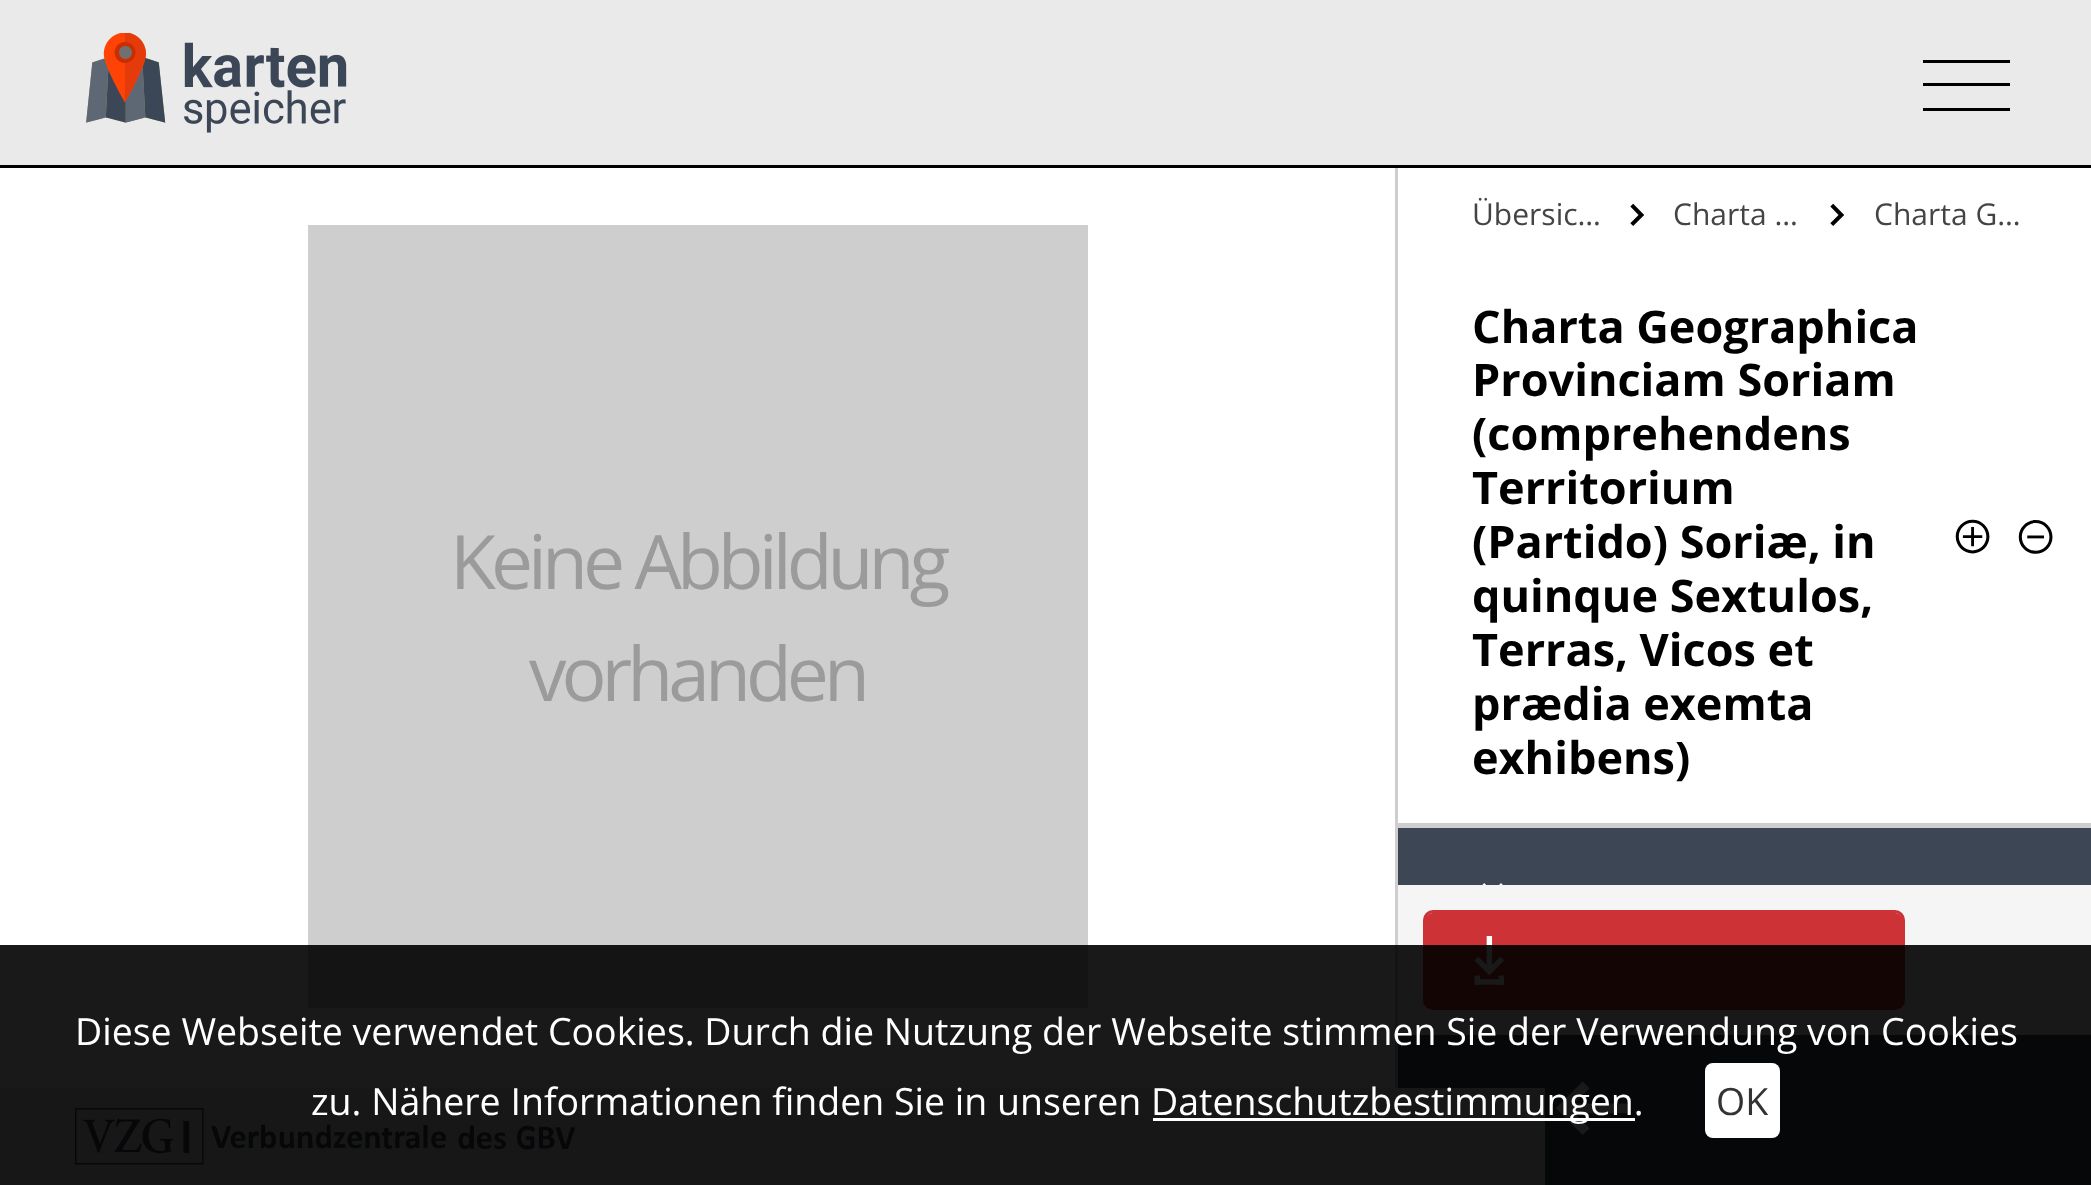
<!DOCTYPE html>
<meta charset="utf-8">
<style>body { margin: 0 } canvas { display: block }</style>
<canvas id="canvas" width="2091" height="1185"></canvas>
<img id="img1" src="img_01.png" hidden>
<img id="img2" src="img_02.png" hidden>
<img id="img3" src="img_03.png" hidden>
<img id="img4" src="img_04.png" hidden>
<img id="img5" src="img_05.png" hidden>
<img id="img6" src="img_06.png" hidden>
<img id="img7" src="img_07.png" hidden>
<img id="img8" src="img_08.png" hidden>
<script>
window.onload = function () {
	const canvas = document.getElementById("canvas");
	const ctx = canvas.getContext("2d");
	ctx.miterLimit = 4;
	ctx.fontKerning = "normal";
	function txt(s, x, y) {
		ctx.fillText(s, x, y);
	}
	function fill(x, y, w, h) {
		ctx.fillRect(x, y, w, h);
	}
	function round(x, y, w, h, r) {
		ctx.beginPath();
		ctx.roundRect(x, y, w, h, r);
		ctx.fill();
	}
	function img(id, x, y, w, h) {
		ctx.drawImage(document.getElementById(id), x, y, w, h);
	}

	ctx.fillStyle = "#FFFFFF";
	fill(0, 0, 2091, 1185);
	ctx.fillStyle = "#EAEAEA";
	fill(0, 0, 2091, 165);
	ctx.fillStyle = "#000000";
	fill(0, 165, 2091, 3);
	img("img1", 86, 33, 261, 100);
	fill(1923, 60, 87, 3);
	fill(1923, 83, 87, 3);
	fill(1923, 108, 87, 3);
	ctx.fillStyle = "#CECECE";
	fill(308, 225, 780, 783);
	ctx.fillStyle = "#F5F5F5";
	fill(1398, 885, 693, 150);
	ctx.fillStyle = "#CECECE";
	fill(1395, 168, 3, 920);
	img("img2", 1630, 203, 14, 23);
	img("img2", 1830, 203, 14, 23);
	fill(1398, 823, 693, 5);
	img("img3", 1955, 519, 35, 35);
	img("img4", 2018, 520, 35, 34);
	ctx.fillStyle = "#3D4655";
	fill(1398, 828, 693, 57);
	img("img5", 1482, 883, 21, 2);
	ctx.beginPath();
	ctx.roundRect(1424.5, 911.5, 479, 97, 8.5);
	ctx.strokeStyle = "#CD3336";
	ctx.lineWidth = 3;
	ctx.stroke();
	ctx.fillStyle = "#CD3336";
	round(1425, 913, 478, 95, 8);
	img("img6", 1474, 936, 31, 49);
	ctx.fillStyle = "#3D4655";
	fill(1398, 1035, 693, 150);
	img("img7", 1555, 1081, 72, 54);
	ctx.fillStyle = "#EAEAEA";
	fill(0, 1088, 1545, 97);
	img("img8", 75, 1108, 500, 57);
	ctx.fillStyle = "rgba(0, 0, 0, 0.9)";
	fill(0, 945, 2091, 240);
	ctx.fillStyle = "#FFFFFF";
	fill(1153, 1118, 482, 3);
	round(1705, 1063, 75, 75, 8);
	ctx.letterSpacing = "-5px";
	ctx.font = "75px Open Sans";
	ctx.fillStyle = "#9B9B9B";
	txt("Keine Abbildung", 450, 589);
	txt("vorhanden", 529, 701);
	ctx.letterSpacing = "0px";
	ctx.font = "30px Open Sans";
	ctx.fillStyle = "#444444";
	txt("Übersic…", 1472, 225);
	txt("Charta …", 1673, 225);
	txt("Charta G…", 1874, 225);
	ctx.font = "bold 45px Open Sans";
	ctx.fillStyle = "#000000";
	txt("Charta Geographica", 1472, 343);
	txt("Provinciam Soriam", 1472, 396);
	txt("(comprehendens", 1472, 450);
	txt("Territorium", 1472, 504);
	txt("(Partido) Soriæ, in", 1472, 558);
	txt("quinque Sextulos,", 1472, 612);
	txt("Terras, Vicos et", 1472, 666);
	txt("prædia exemta", 1472, 720);
	txt("exhibens)", 1472, 774);
	ctx.font = "37.5px Open Sans";
	ctx.fillStyle = "#FFFFFF";
	txt("Diese Webseite verwendet Cookies. Durch die Nutzung der Webseite stimmen Sie der Verwendung von Cookies", 75, 1045);
	txt("zu. Nähere Informationen finden Sie in unseren", 311, 1115);
	txt("Datenschutzbestimmungen.", 1151, 1115);
	ctx.fillStyle = "#333333";
	txt("OK", 1716, 1115);
};
</script>
